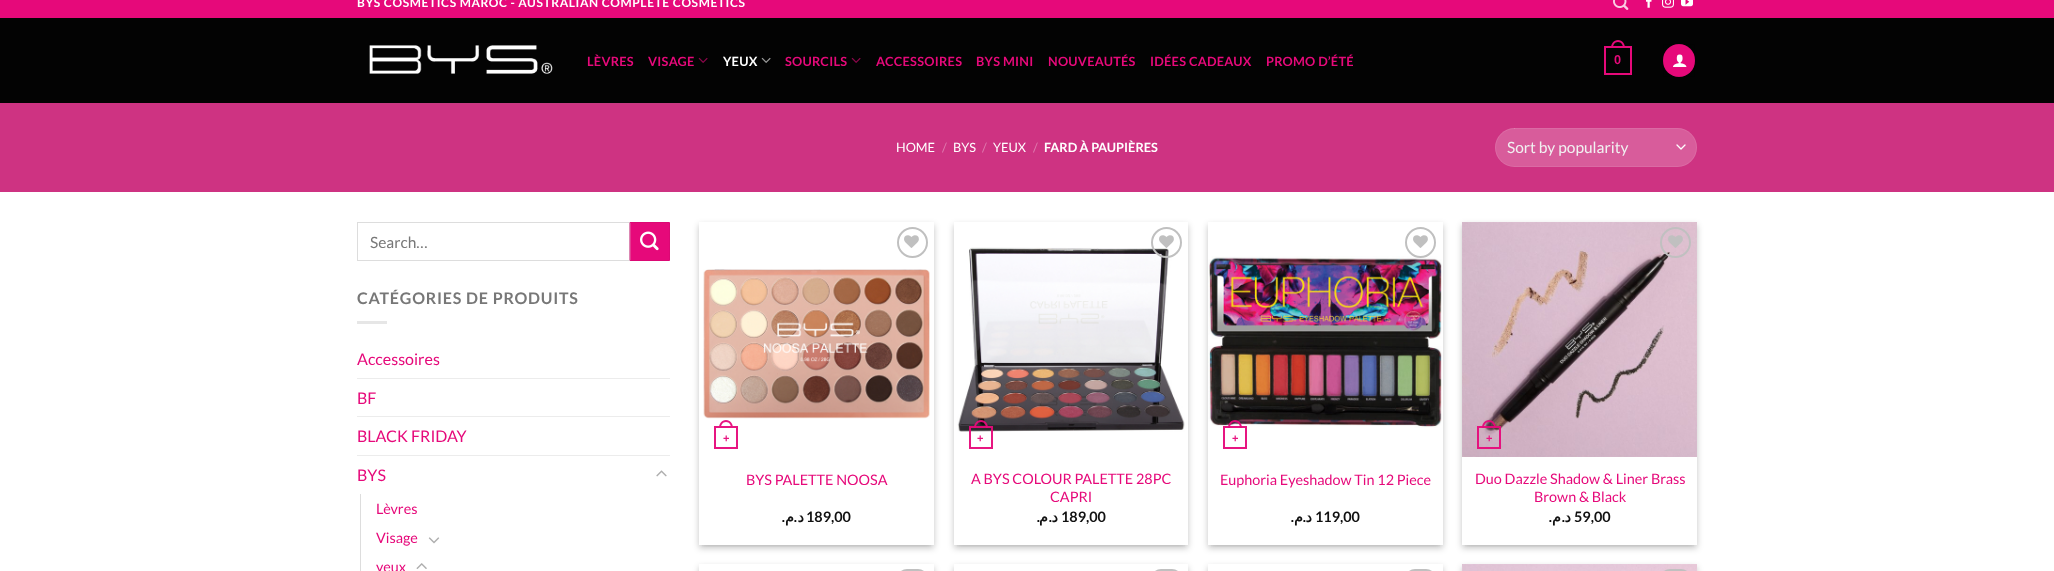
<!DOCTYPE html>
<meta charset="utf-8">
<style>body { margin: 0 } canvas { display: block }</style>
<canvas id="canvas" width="2054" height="571"></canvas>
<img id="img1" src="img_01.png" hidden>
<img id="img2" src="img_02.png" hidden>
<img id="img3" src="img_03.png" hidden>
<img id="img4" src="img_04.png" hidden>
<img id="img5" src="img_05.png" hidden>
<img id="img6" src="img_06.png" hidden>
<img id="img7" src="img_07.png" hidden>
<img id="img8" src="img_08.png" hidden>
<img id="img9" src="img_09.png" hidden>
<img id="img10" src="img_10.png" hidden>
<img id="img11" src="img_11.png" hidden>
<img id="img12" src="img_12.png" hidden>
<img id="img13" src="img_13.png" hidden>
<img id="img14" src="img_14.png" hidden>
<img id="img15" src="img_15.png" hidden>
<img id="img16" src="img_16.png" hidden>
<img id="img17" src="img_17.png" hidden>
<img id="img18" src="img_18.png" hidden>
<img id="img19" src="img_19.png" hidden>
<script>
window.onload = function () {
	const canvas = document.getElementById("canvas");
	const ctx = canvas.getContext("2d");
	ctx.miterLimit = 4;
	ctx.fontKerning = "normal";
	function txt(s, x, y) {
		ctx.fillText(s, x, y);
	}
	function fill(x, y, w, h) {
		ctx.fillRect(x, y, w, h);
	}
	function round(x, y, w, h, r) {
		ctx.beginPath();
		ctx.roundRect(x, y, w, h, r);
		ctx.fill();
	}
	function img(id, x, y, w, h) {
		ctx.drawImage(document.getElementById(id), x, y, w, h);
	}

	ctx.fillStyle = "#FFFFFF";
	fill(0, 0, 2054, 571);
	ctx.fillStyle = "#E6097A";
	fill(0, 0, 2054, 18);
	img("img1", 1613, 0, 16, 10);
	img("img2", 1646, 0, 6, 8);
	img("img3", 1662, 0, 12, 8);
	img("img4", 1681, 0, 12, 7);
	ctx.fillStyle = "#030303";
	fill(0, 18, 2054, 85);
	img("img5", 369, 45, 184, 29);
	img("img6", 698, 57, 10, 6);
	img("img7", 761, 57, 10, 6);
	img("img6", 851, 57, 10, 6);
	ctx.strokeStyle = "#E6097A";
	ctx.lineWidth = 2;
	ctx.strokeRect(1605, 47, 26, 27);
	ctx.fillStyle = "#E6097A";
	ctx.beginPath();
	ctx.moveTo(1618, 40);
	ctx.bezierCurveTo(1622.5, 40, 1625, 44, 1625, 48);
	ctx.lineTo(1611, 48);
	ctx.bezierCurveTo(1611, 44, 1613.5, 40, 1618, 40);
	ctx.closePath();
	ctx.moveTo(1618, 42);
	ctx.bezierCurveTo(1621.5, 42, 1623, 45, 1623, 48);
	ctx.lineTo(1613, 48);
	ctx.bezierCurveTo(1613, 45, 1614.5, 42, 1618, 42);
	ctx.closePath();
	ctx.fill("evenodd");
	round(1663, 44, 32, 33, 16);
	ctx.strokeStyle = "rgba(0, 0, 0, 0.05)";
	ctx.lineWidth = 1;
	ctx.strokeRect(1663.5, 44.5, 31, 32);
	img("img8", 1673, 54, 14, 13);
	ctx.fillStyle = "#CE3382";
	fill(0, 103, 2054, 89);
	ctx.fillStyle = "#C53A81";
	fill(357, 103, 1340, 1);
	ctx.fillStyle = "#D85C9B";
	round(1495, 128, 202, 39, 19.5);
	ctx.beginPath();
	ctx.moveTo(1677, 145);
	ctx.lineTo(1681, 149);
	ctx.lineTo(1685, 145);
	ctx.strokeStyle = "#FFFFFF";
	ctx.lineWidth = 1.3;
	ctx.lineCap = "round";
	ctx.lineJoin = "round";
	ctx.stroke();
	ctx.beginPath();
	ctx.roundRect(1495.5, 128.5, 201, 38, 19);
	ctx.strokeStyle = "rgba(255, 255, 255, 0.09)";
	ctx.lineWidth = 1;
	ctx.lineJoin = "miter";
	ctx.stroke();
	ctx.strokeStyle = "#DDDDDD";
	ctx.strokeRect(357.5, 222.5, 272, 38);
	ctx.fillStyle = "#E6097A";
	ctx.beginPath();
	ctx.rect(630.5, 222.5, 39, 38);
	ctx.fill();
	ctx.strokeStyle = "#DB0974";
	ctx.stroke();
	img("img9", 640, 231, 19, 20);
	ctx.fillStyle = "#E6E6E6";
	fill(357, 321, 30, 3);
	ctx.fillStyle = "#ECECEC";
	fill(357, 378, 313, 1);
	fill(357, 416, 313, 1);
	fill(357, 455, 313, 1);
	img("img10", 656, 470, 11, 7);
	ctx.fillStyle = "#DDDDDD";
	fill(360, 494, 1, 77);
	img("img11", 428, 537, 12, 7);
	img("img12", 416, 563, 11, 6);
	ctx.save();
	ctx.beginPath();
	ctx.moveTo(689, 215);
	ctx.lineTo(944, 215);
	ctx.lineTo(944, 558);
	ctx.lineTo(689, 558);
	ctx.closePath();
	ctx.moveTo(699, 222);
	ctx.lineTo(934, 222);
	ctx.lineTo(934, 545);
	ctx.lineTo(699, 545);
	ctx.closePath();
	ctx.clip("evenodd");
	ctx.fillStyle = "rgba(0, 0, 0, 0.23)";
	ctx.filter = "blur(3px)";
	ctx.beginPath();
	ctx.rect(699, 225, 235, 323);
	ctx.fill();
	ctx.filter = "none";
	ctx.restore();
	ctx.save();
	ctx.beginPath();
	ctx.rect(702, 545, 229, 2);
	ctx.clip();
	ctx.fillStyle = "rgba(0, 0, 0, 0.16)";
	ctx.filter = "blur(3px)";
	ctx.beginPath();
	ctx.rect(703, 229, 227, 315);
	ctx.fill();
	ctx.filter = "none";
	ctx.restore();
	ctx.beginPath();
	ctx.arc(912.5, 242.5, 14.5, 0, Math.PI * 2);
	ctx.strokeStyle = "#C0C0C0";
	ctx.lineWidth = 2;
	ctx.stroke();
	img("img13", 904, 235, 15, 13);
	img("img14", 703, 269, 227, 150);
	ctx.strokeStyle = "#E71581";
	ctx.strokeRect(715, 427, 22, 21);
	ctx.fillStyle = "#E71581";
	ctx.beginPath();
	ctx.moveTo(726, 420);
	ctx.bezierCurveTo(730.5, 420, 733, 424, 733, 428);
	ctx.lineTo(719, 428);
	ctx.bezierCurveTo(719, 424, 721.5, 420, 726, 420);
	ctx.closePath();
	ctx.moveTo(726, 422);
	ctx.bezierCurveTo(729.5, 422, 731, 425, 731, 428);
	ctx.lineTo(721, 428);
	ctx.bezierCurveTo(721, 425, 722.5, 422, 726, 422);
	ctx.closePath();
	ctx.fill("evenodd");
	ctx.save();
	ctx.beginPath();
	ctx.moveTo(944, 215);
	ctx.lineTo(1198, 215);
	ctx.lineTo(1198, 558);
	ctx.lineTo(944, 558);
	ctx.closePath();
	ctx.moveTo(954, 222);
	ctx.lineTo(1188, 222);
	ctx.lineTo(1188, 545);
	ctx.lineTo(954, 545);
	ctx.closePath();
	ctx.clip("evenodd");
	ctx.fillStyle = "rgba(0, 0, 0, 0.23)";
	ctx.filter = "blur(3px)";
	ctx.beginPath();
	ctx.rect(954, 225, 234, 323);
	ctx.fill();
	ctx.filter = "none";
	ctx.restore();
	ctx.save();
	ctx.beginPath();
	ctx.rect(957, 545, 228, 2);
	ctx.clip();
	ctx.fillStyle = "rgba(0, 0, 0, 0.16)";
	ctx.filter = "blur(3px)";
	ctx.beginPath();
	ctx.rect(958, 229, 226, 315);
	ctx.fill();
	ctx.filter = "none";
	ctx.restore();
	img("img15", 957, 247, 228, 185);
	ctx.beginPath();
	ctx.arc(1166.5, 242.5, 14.5, 0, Math.PI * 2);
	ctx.strokeStyle = "#C0C0C0";
	ctx.stroke();
	img("img13", 1159, 235, 15, 13);
	ctx.strokeStyle = "rgba(230, 9, 122, 0.95)";
	ctx.strokeRect(970, 427, 22, 21);
	ctx.fillStyle = "rgba(230, 9, 122, 0.95)";
	ctx.beginPath();
	ctx.moveTo(981, 420);
	ctx.bezierCurveTo(985.5, 420, 988, 424, 988, 428);
	ctx.lineTo(974, 428);
	ctx.bezierCurveTo(974, 424, 976.5, 420, 981, 420);
	ctx.closePath();
	ctx.moveTo(981, 422);
	ctx.bezierCurveTo(984.5, 422, 986, 425, 986, 428);
	ctx.lineTo(976, 428);
	ctx.bezierCurveTo(976, 425, 977.5, 422, 981, 422);
	ctx.closePath();
	ctx.fill("evenodd");
	ctx.save();
	ctx.beginPath();
	ctx.moveTo(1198, 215);
	ctx.lineTo(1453, 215);
	ctx.lineTo(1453, 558);
	ctx.lineTo(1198, 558);
	ctx.closePath();
	ctx.moveTo(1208, 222);
	ctx.lineTo(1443, 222);
	ctx.lineTo(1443, 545);
	ctx.lineTo(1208, 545);
	ctx.closePath();
	ctx.clip("evenodd");
	ctx.fillStyle = "rgba(0, 0, 0, 0.23)";
	ctx.filter = "blur(3px)";
	ctx.beginPath();
	ctx.rect(1208, 225, 235, 323);
	ctx.fill();
	ctx.filter = "none";
	ctx.restore();
	ctx.save();
	ctx.beginPath();
	ctx.rect(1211, 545, 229, 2);
	ctx.clip();
	ctx.fillStyle = "rgba(0, 0, 0, 0.16)";
	ctx.filter = "blur(3px)";
	ctx.beginPath();
	ctx.rect(1212, 229, 227, 315);
	ctx.fill();
	ctx.filter = "none";
	ctx.restore();
	img("img16", 1208, 256, 234, 172);
	ctx.beginPath();
	ctx.arc(1420.5, 242.5, 14.5, 0, Math.PI * 2);
	ctx.strokeStyle = "#C0C0C0";
	ctx.stroke();
	img("img13", 1413, 235, 15, 13);
	ctx.strokeStyle = "#E71581";
	ctx.strokeRect(1224, 427, 22, 21);
	ctx.beginPath();
	ctx.moveTo(1235, 420);
	ctx.bezierCurveTo(1239.5, 420, 1242, 424, 1242, 428);
	ctx.lineTo(1228, 428);
	ctx.bezierCurveTo(1228, 424, 1230.5, 420, 1235, 420);
	ctx.closePath();
	ctx.moveTo(1235, 422);
	ctx.bezierCurveTo(1238.5, 422, 1240, 425, 1240, 428);
	ctx.lineTo(1230, 428);
	ctx.bezierCurveTo(1230, 425, 1231.5, 422, 1235, 422);
	ctx.closePath();
	ctx.fill("evenodd");
	ctx.save();
	ctx.beginPath();
	ctx.moveTo(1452, 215);
	ctx.lineTo(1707, 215);
	ctx.lineTo(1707, 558);
	ctx.lineTo(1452, 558);
	ctx.closePath();
	ctx.moveTo(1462, 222);
	ctx.lineTo(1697, 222);
	ctx.lineTo(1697, 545);
	ctx.lineTo(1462, 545);
	ctx.closePath();
	ctx.clip("evenodd");
	ctx.fillStyle = "rgba(0, 0, 0, 0.23)";
	ctx.filter = "blur(3px)";
	ctx.beginPath();
	ctx.rect(1462, 225, 235, 323);
	ctx.fill();
	ctx.filter = "none";
	ctx.restore();
	ctx.save();
	ctx.beginPath();
	ctx.rect(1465, 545, 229, 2);
	ctx.clip();
	ctx.fillStyle = "rgba(0, 0, 0, 0.16)";
	ctx.filter = "blur(3px)";
	ctx.beginPath();
	ctx.rect(1466, 229, 227, 315);
	ctx.fill();
	ctx.filter = "none";
	ctx.restore();
	img("img17", 1462, 222, 235, 235);
	ctx.beginPath();
	ctx.arc(1675.5, 242.5, 14.5, 0, Math.PI * 2);
	ctx.strokeStyle = "#C0C0C0";
	ctx.stroke();
	img("img18", 1668, 235, 15, 13);
	ctx.strokeStyle = "rgba(230, 9, 122, 0.95)";
	ctx.strokeRect(1478, 427, 22, 21);
	ctx.beginPath();
	ctx.moveTo(1489, 420);
	ctx.bezierCurveTo(1493.5, 420, 1496, 424, 1496, 428);
	ctx.lineTo(1482, 428);
	ctx.bezierCurveTo(1482, 424, 1484.5, 420, 1489, 420);
	ctx.closePath();
	ctx.moveTo(1489, 422);
	ctx.bezierCurveTo(1492.5, 422, 1494, 425, 1494, 428);
	ctx.lineTo(1484, 428);
	ctx.bezierCurveTo(1484, 425, 1485.5, 422, 1489, 422);
	ctx.closePath();
	ctx.fill("evenodd");
	ctx.save();
	ctx.beginPath();
	ctx.moveTo(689, 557);
	ctx.lineTo(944, 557);
	ctx.lineTo(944, 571);
	ctx.lineTo(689, 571);
	ctx.closePath();
	ctx.moveTo(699, 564);
	ctx.lineTo(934, 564);
	ctx.lineTo(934, 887);
	ctx.lineTo(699, 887);
	ctx.closePath();
	ctx.clip("evenodd");
	ctx.fillStyle = "rgba(0, 0, 0, 0.23)";
	ctx.filter = "blur(3px)";
	ctx.beginPath();
	ctx.rect(699, 567, 235, 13);
	ctx.fill();
	ctx.filter = "none";
	ctx.restore();
	ctx.beginPath();
	ctx.roundRect(898, 570, 29, 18, 14.5);
	ctx.strokeStyle = "#C0C0C0";
	ctx.stroke();
	ctx.save();
	ctx.beginPath();
	ctx.moveTo(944, 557);
	ctx.lineTo(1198, 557);
	ctx.lineTo(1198, 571);
	ctx.lineTo(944, 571);
	ctx.closePath();
	ctx.moveTo(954, 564);
	ctx.lineTo(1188, 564);
	ctx.lineTo(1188, 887);
	ctx.lineTo(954, 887);
	ctx.closePath();
	ctx.clip("evenodd");
	ctx.fillStyle = "rgba(0, 0, 0, 0.23)";
	ctx.filter = "blur(3px)";
	ctx.beginPath();
	ctx.rect(954, 567, 234, 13);
	ctx.fill();
	ctx.filter = "none";
	ctx.restore();
	ctx.beginPath();
	ctx.roundRect(1152, 570, 29, 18, 14.5);
	ctx.stroke();
	ctx.save();
	ctx.beginPath();
	ctx.moveTo(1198, 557);
	ctx.lineTo(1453, 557);
	ctx.lineTo(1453, 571);
	ctx.lineTo(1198, 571);
	ctx.closePath();
	ctx.moveTo(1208, 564);
	ctx.lineTo(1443, 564);
	ctx.lineTo(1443, 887);
	ctx.lineTo(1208, 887);
	ctx.closePath();
	ctx.clip("evenodd");
	ctx.fillStyle = "rgba(0, 0, 0, 0.23)";
	ctx.filter = "blur(3px)";
	ctx.beginPath();
	ctx.rect(1208, 567, 235, 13);
	ctx.fill();
	ctx.filter = "none";
	ctx.restore();
	ctx.beginPath();
	ctx.roundRect(1406, 570, 29, 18, 14.5);
	ctx.stroke();
	ctx.fillStyle = "rgba(0, 0, 0, 0.23)";
	ctx.filter = "blur(3px)";
	ctx.beginPath();
	ctx.rect(1462, 567, 235, 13);
	ctx.fill();
	ctx.filter = "none";
	img("img19", 1462, 564, 235, 7);
	ctx.beginPath();
	ctx.roundRect(1661, 570, 29, 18, 14.5);
	ctx.stroke();
	ctx.letterSpacing = "0.6px";
	ctx.font = "bold 12px Lato";
	ctx.fillStyle = "#FFFFFF";
	txt("BYS COSMETICS MAROC - AUSTRALIAN COMPLETE COSMETICS", 357, 7);
	ctx.letterSpacing = "0.25px";
	ctx.font = "bold 12.75px Lato";
	ctx.fillStyle = "#E6097A";
	txt("LÈVRES", 587, 66);
	txt("VISAGE", 648, 66);
	ctx.fillStyle = "#FFFFFF";
	txt("YEUX", 723, 66);
	ctx.fillStyle = "#E6097A";
	txt("SOURCILS", 785, 66);
	txt("ACCESSOIRES", 876, 66);
	txt("BYS MINI", 976, 66);
	txt("NOUVEAUTÉS", 1048, 66);
	txt("IDÉES CADEAUX", 1150, 66);
	txt("PROMO D’ÉTÉ", 1266, 66);
	ctx.font = "bold 12.75px Liberation Sans";
	txt("0", 1614, 64);
	ctx.letterSpacing = "0px";
	ctx.font = "12.75px Lato";
	ctx.fillStyle = "#FFFFFF";
	txt("HOME", 896, 152);
	ctx.fillStyle = "#DF7AAE";
	txt("/", 942, 152);
	ctx.fillStyle = "#FFFFFF";
	txt("BYS", 953, 152);
	ctx.fillStyle = "#DF7AAE";
	txt("/", 982, 152);
	ctx.fillStyle = "#FFFFFF";
	txt("YEUX", 993, 152);
	ctx.fillStyle = "#DF7AAE";
	txt("/", 1033, 152);
	ctx.font = "bold 12.75px Lato";
	ctx.fillStyle = "#FFFFFF";
	txt("FARD À PAUPIÈRES", 1044, 152);
	ctx.font = "15.5px Lato";
	ctx.fillStyle = "#F1F1F1";
	txt("Sort by popularity", 1507, 153);
	ctx.fillStyle = "#777777";
	txt("Search…", 370, 248);
	ctx.letterSpacing = "0.8px";
	ctx.font = "bold 16px Lato";
	txt("CATÉGORIES DE PRODUITS", 357, 304);
	ctx.letterSpacing = "0px";
	ctx.font = "16px Lato";
	ctx.fillStyle = "#E6097A";
	txt("Accessoires", 357, 365);
	txt("BF", 357, 404);
	txt("BLACK FRIDAY", 357, 442);
	txt("BYS", 357, 481);
	ctx.font = "14.4px Lato";
	txt("Lèvres", 376, 514);
	txt("Visage", 376, 543);
	txt("yeux", 376, 572);
	ctx.font = "bold 11px Liberation Sans";
	ctx.fillStyle = "#E71581";
	txt("+", 723, 442);
	ctx.font = "14.4px Lato";
	ctx.fillStyle = "#E6097A";
	txt("BYS PALETTE NOOSA", 746, 485);
	ctx.direction = "rtl";
	ctx.font = "bold 14.4px Lato";
	ctx.fillStyle = "#111111";
	txt(".", 785, 522);
	ctx.font = "bold 14.4px DejaVu Sans";
	txt("م", 794, 522);
	ctx.font = "bold 14.4px Lato";
	txt(".", 797, 522);
	ctx.font = "bold 14.4px DejaVu Sans";
	txt("د", 804, 522);
	ctx.direction = "ltr";
	ctx.font = "bold 14.4px Lato";
	txt("189,00", 806, 522);
	ctx.font = "bold 11px Liberation Sans";
	ctx.fillStyle = "#E71581";
	txt("+", 977, 442);
	ctx.font = "14.4px Lato";
	ctx.fillStyle = "#E6097A";
	txt("A BYS COLOUR PALETTE 28PC", 971, 484);
	txt("CAPRI", 1050, 502);
	ctx.direction = "rtl";
	ctx.font = "bold 14.4px Lato";
	ctx.fillStyle = "#111111";
	txt(".", 1040, 522);
	ctx.font = "bold 14.4px DejaVu Sans";
	txt("م", 1048, 522);
	ctx.font = "bold 14.4px Lato";
	txt(".", 1052, 522);
	ctx.font = "bold 14.4px DejaVu Sans";
	txt("د", 1058, 522);
	ctx.direction = "ltr";
	ctx.font = "bold 14.4px Lato";
	txt("189,00", 1061, 522);
	ctx.font = "bold 11px Liberation Sans";
	ctx.fillStyle = "#E71581";
	txt("+", 1232, 442);
	ctx.font = "14.4px Lato";
	ctx.fillStyle = "#E6097A";
	txt("Euphoria Eyeshadow Tin 12 Piece", 1220, 485);
	ctx.direction = "rtl";
	ctx.font = "bold 14.4px Lato";
	ctx.fillStyle = "#111111";
	txt(".", 1294, 522);
	ctx.font = "bold 14.4px DejaVu Sans";
	txt("م", 1303, 522);
	ctx.font = "bold 14.4px Lato";
	txt(".", 1306, 522);
	ctx.font = "bold 14.4px DejaVu Sans";
	txt("د", 1312, 522);
	ctx.direction = "ltr";
	ctx.font = "bold 14.4px Lato";
	txt("119,00", 1315, 522);
	ctx.font = "bold 11px Liberation Sans";
	ctx.fillStyle = "#E71581";
	txt("+", 1486, 442);
	ctx.font = "14.4px Lato";
	ctx.fillStyle = "#E6097A";
	txt("Duo Dazzle Shadow & Liner Brass", 1475, 484);
	txt("Brown & Black", 1534, 502);
	ctx.direction = "rtl";
	ctx.font = "bold 14.4px Lato";
	ctx.fillStyle = "#111111";
	txt(".", 1552, 522);
	ctx.font = "bold 14.4px DejaVu Sans";
	txt("م", 1561, 522);
	ctx.font = "bold 14.4px Lato";
	txt(".", 1565, 522);
	ctx.font = "bold 14.4px DejaVu Sans";
	txt("د", 1571, 522);
	ctx.direction = "ltr";
	ctx.font = "bold 14.4px Lato";
	txt("59,00", 1574, 522);
};
</script>
